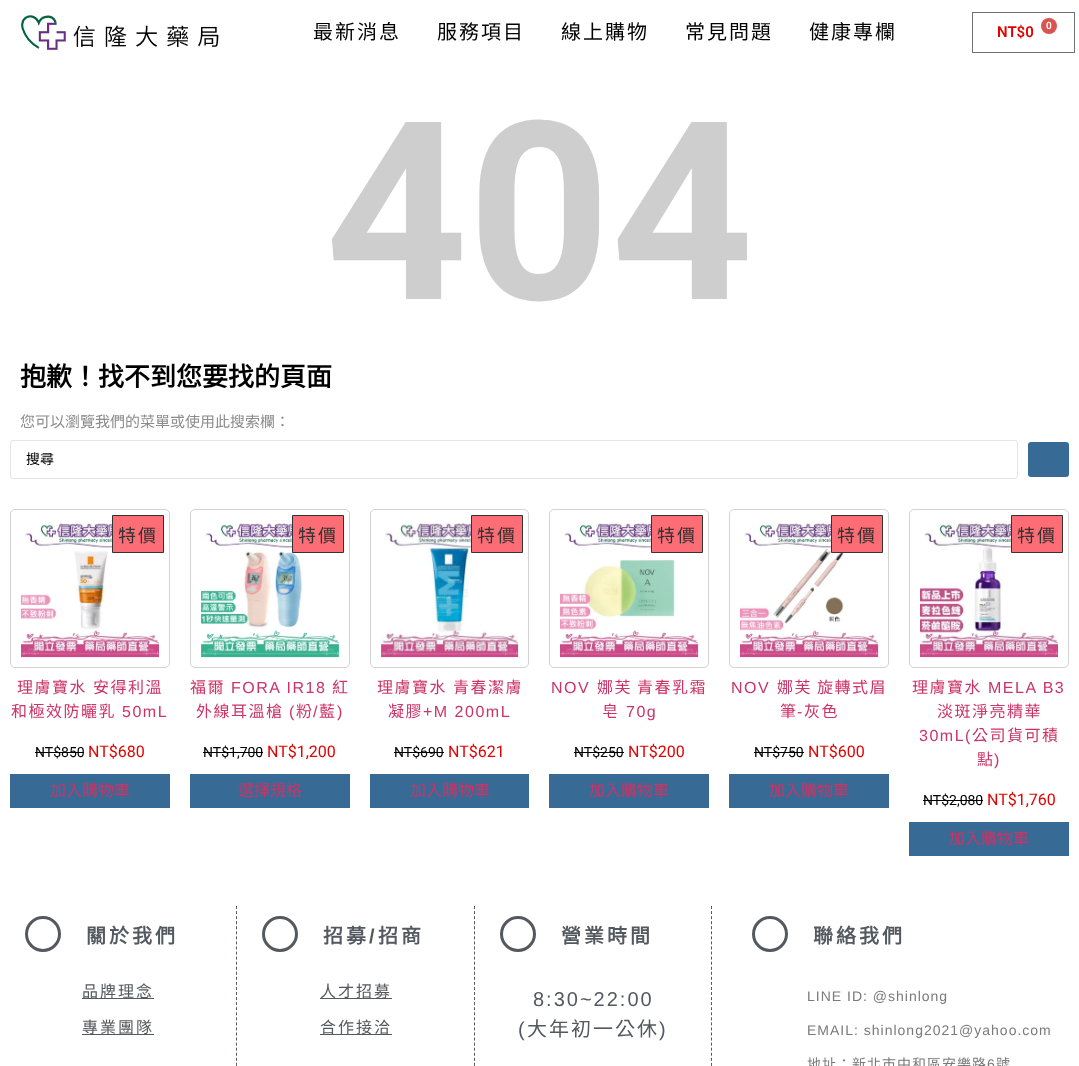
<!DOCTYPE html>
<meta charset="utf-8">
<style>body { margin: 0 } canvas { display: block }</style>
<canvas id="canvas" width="1079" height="1066"></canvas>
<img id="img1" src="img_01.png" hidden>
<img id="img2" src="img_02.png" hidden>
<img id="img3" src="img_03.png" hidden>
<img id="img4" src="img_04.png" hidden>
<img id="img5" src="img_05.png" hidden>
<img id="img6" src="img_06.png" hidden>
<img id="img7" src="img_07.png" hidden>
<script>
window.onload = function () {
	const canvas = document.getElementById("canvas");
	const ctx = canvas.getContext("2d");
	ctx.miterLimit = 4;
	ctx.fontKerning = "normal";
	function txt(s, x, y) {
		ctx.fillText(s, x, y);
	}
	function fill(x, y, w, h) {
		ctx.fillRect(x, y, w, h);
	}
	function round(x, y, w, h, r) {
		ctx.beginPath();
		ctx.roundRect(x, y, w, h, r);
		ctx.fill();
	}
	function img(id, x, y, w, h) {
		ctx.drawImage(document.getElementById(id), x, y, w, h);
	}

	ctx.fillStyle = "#FFFFFF";
	fill(0, 0, 1079, 1066);
	img("img1", 21, 15, 198, 35);
	ctx.strokeStyle = "#69727D";
	ctx.strokeRect(972.5, 12.5, 102, 40);
	ctx.fillStyle = "#D9534F";
	ctx.beginPath();
	ctx.arc(1049, 26, 8, 0, Math.PI * 2);
	ctx.fill();
	ctx.beginPath();
	ctx.roundRect(10.5, 440.5, 1007, 38, 2.5);
	ctx.strokeStyle = "#E1E5EB";
	ctx.stroke();
	ctx.fillStyle = "#376B95";
	round(1028, 442, 41, 35, 3);
	ctx.beginPath();
	ctx.roundRect(10.5, 509.5, 159, 158, 4.5);
	ctx.strokeStyle = "#D3D3D3";
	ctx.stroke();
	img("img2", 21, 523, 138, 135);
	ctx.fillStyle = "#FD6D75";
	ctx.beginPath();
	ctx.rect(112.5, 515.5, 51, 37);
	ctx.fill();
	ctx.strokeStyle = "#333333";
	ctx.stroke();
	ctx.fillStyle = "#000000";
	fill(35, 752, 49, 1);
	ctx.fillStyle = "#376B95";
	fill(10, 774, 160, 34);
	ctx.beginPath();
	ctx.roundRect(190.5, 509.5, 159, 158, 4.5);
	ctx.strokeStyle = "#D3D3D3";
	ctx.stroke();
	img("img3", 201, 523, 138, 135);
	ctx.fillStyle = "#FD6D75";
	ctx.beginPath();
	ctx.rect(292.5, 515.5, 51, 37);
	ctx.fill();
	ctx.strokeStyle = "#333333";
	ctx.stroke();
	ctx.fillStyle = "#000000";
	fill(203, 752, 60, 1);
	ctx.fillStyle = "#376B95";
	fill(190, 774, 160, 34);
	ctx.beginPath();
	ctx.roundRect(370.5, 509.5, 158, 158, 4.5);
	ctx.strokeStyle = "#D3D3D3";
	ctx.stroke();
	img("img4", 381, 521, 138, 137);
	ctx.fillStyle = "#FD6D75";
	ctx.beginPath();
	ctx.rect(471.5, 515.5, 51, 37);
	ctx.fill();
	ctx.strokeStyle = "#333333";
	ctx.stroke();
	ctx.fillStyle = "#000000";
	fill(394, 752, 50, 1);
	ctx.fillStyle = "#376B95";
	fill(370, 774, 159, 34);
	ctx.beginPath();
	ctx.roundRect(549.5, 509.5, 159, 158, 4.5);
	ctx.strokeStyle = "#D3D3D3";
	ctx.stroke();
	img("img5", 560, 523, 139, 135);
	ctx.fillStyle = "#FD6D75";
	ctx.beginPath();
	ctx.rect(651.5, 515.5, 51, 37);
	ctx.fill();
	ctx.strokeStyle = "#333333";
	ctx.stroke();
	ctx.fillStyle = "#000000";
	fill(574, 752, 50, 1);
	ctx.fillStyle = "#376B95";
	fill(549, 774, 160, 34);
	ctx.beginPath();
	ctx.roundRect(729.5, 509.5, 159, 158, 4.5);
	ctx.strokeStyle = "#D3D3D3";
	ctx.stroke();
	img("img6", 740, 523, 139, 135);
	ctx.fillStyle = "#FD6D75";
	ctx.beginPath();
	ctx.rect(831.5, 515.5, 51, 37);
	ctx.fill();
	ctx.strokeStyle = "#333333";
	ctx.stroke();
	ctx.fillStyle = "#000000";
	fill(754, 752, 50, 1);
	ctx.fillStyle = "#376B95";
	fill(729, 774, 160, 34);
	ctx.beginPath();
	ctx.roundRect(909.5, 509.5, 159, 158, 4.5);
	ctx.strokeStyle = "#D3D3D3";
	ctx.stroke();
	img("img7", 920, 521, 138, 137);
	ctx.fillStyle = "#FD6D75";
	ctx.beginPath();
	ctx.rect(1011.5, 515.5, 51, 37);
	ctx.fill();
	ctx.strokeStyle = "#333333";
	ctx.stroke();
	ctx.fillStyle = "#000000";
	fill(923, 800, 60, 1);
	ctx.fillStyle = "#376B95";
	fill(909, 822, 160, 34);
	ctx.beginPath();
	ctx.moveTo(236.5, 906);
	ctx.lineTo(236.5, 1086);
	ctx.strokeStyle = "#54595F";
	ctx.setLineDash([3, 2.06]);
	ctx.stroke();
	ctx.beginPath();
	ctx.arc(43, 934, 16.5, 0, Math.PI * 2);
	ctx.lineWidth = 3;
	ctx.setLineDash([]);
	ctx.stroke();
	ctx.fillStyle = "#54595F";
	fill(82, 998, 72, 1);
	fill(82, 1034, 72, 1);
	ctx.beginPath();
	ctx.moveTo(474.5, 906);
	ctx.lineTo(474.5, 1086);
	ctx.lineWidth = 1;
	ctx.setLineDash([3, 2.06]);
	ctx.stroke();
	ctx.beginPath();
	ctx.arc(280, 934, 16.5, 0, Math.PI * 2);
	ctx.lineWidth = 3;
	ctx.setLineDash([]);
	ctx.stroke();
	fill(320, 998, 72, 1);
	fill(320, 1034, 72, 1);
	ctx.beginPath();
	ctx.moveTo(711.5, 906);
	ctx.lineTo(711.5, 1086);
	ctx.lineWidth = 1;
	ctx.setLineDash([3, 2.06]);
	ctx.stroke();
	ctx.beginPath();
	ctx.arc(518, 934, 16.5, 0, Math.PI * 2);
	ctx.lineWidth = 3;
	ctx.setLineDash([]);
	ctx.stroke();
	ctx.beginPath();
	ctx.arc(770, 934, 16.5, 0, Math.PI * 2);
	ctx.stroke();
	ctx.letterSpacing = "2px";
	ctx.font = "20px Noto Sans CJK TC";
	ctx.fillStyle = "#000000";
	txt("最新消息", 313, 39);
	txt("服務項目", 437, 39);
	txt("線上購物", 561, 39);
	txt("常見問題", 685, 39);
	txt("健康專欄", 809, 39);
	ctx.letterSpacing = "0px";
	ctx.font = "600 15px Roboto";
	ctx.fillStyle = "#E10202";
	txt("NT$0", 997, 37);
	ctx.font = "600 10px Roboto";
	ctx.fillStyle = "#FFFFFF";
	txt("0", 1046, 29);
	ctx.font = "bold 249px Roboto";
	ctx.fillStyle = "#CECECE";
	txt("404", 325, 299);
	ctx.font = "bold 26px Noto Sans CJK TC";
	ctx.fillStyle = "#000000";
	txt("抱歉！找不到您要找的頁面", 20, 386);
	ctx.font = "15px Noto Sans CJK TC";
	ctx.fillStyle = "#8C8C8C";
	txt("您可以瀏覽我們的菜單或使用此搜索欄：", 20, 427);
	ctx.font = "14px Noto Sans CJK TC";
	ctx.fillStyle = "#000000";
	txt("搜尋", 26, 464);
	ctx.letterSpacing = "2px";
	ctx.font = "18px Noto Sans CJK TC";
	ctx.fillStyle = "#333333";
	txt("特價", 118, 542);
	ctx.letterSpacing = "1.5px";
	ctx.wordSpacing = "1px";
	ctx.font = "16px Noto Sans CJK TC";
	ctx.fillStyle = "#CC3366";
	txt("理膚寶水 安得利溫", 17, 693);
	ctx.wordSpacing = "0px";
	txt("和極效防曬乳", 11, 717);
	ctx.font = "16px Liberation Sans";
	txt("50mL", 122, 717);
	ctx.letterSpacing = "0px";
	ctx.font = "14px Roboto";
	ctx.fillStyle = "#000000";
	txt("NT$850", 35, 757);
	ctx.font = "16px Roboto";
	ctx.fillStyle = "#E10202";
	txt("NT$680", 88, 757);
	ctx.font = "16px Noto Sans CJK TC";
	ctx.fillStyle = "#CC3366";
	txt("加入購物車", 50, 796);
	ctx.letterSpacing = "2px";
	ctx.font = "18px Noto Sans CJK TC";
	ctx.fillStyle = "#333333";
	txt("特價", 298, 542);
	ctx.letterSpacing = "1.5px";
	ctx.font = "16px Noto Sans CJK TC";
	ctx.fillStyle = "#CC3366";
	txt("福爾", 190, 693);
	ctx.font = "16px Liberation Sans";
	txt("FORA IR18", 231, 693);
	ctx.font = "16px Noto Sans CJK TC";
	txt("紅", 332, 693);
	txt("外線耳溫槍", 196, 717);
	ctx.font = "16px Liberation Sans";
	txt("(", 289, 717);
	ctx.font = "16px Noto Sans CJK TC";
	txt("粉", 296, 717);
	ctx.font = "16px Liberation Sans";
	txt("/", 313, 717);
	ctx.font = "16px Noto Sans CJK TC";
	txt("藍", 319, 717);
	ctx.font = "16px Liberation Sans";
	txt(")", 337, 717);
	ctx.letterSpacing = "0px";
	ctx.font = "14px Roboto";
	ctx.fillStyle = "#000000";
	txt("NT$1,700", 203, 757);
	ctx.font = "16px Roboto";
	ctx.fillStyle = "#E10202";
	txt("NT$1,200", 267, 757);
	ctx.font = "16px Noto Sans CJK TC";
	ctx.fillStyle = "#CC3366";
	txt("選擇規格", 238, 796);
	ctx.letterSpacing = "2px";
	ctx.font = "18px Noto Sans CJK TC";
	ctx.fillStyle = "#333333";
	txt("特價", 477, 542);
	ctx.letterSpacing = "1.5px";
	ctx.wordSpacing = "1px";
	ctx.font = "16px Noto Sans CJK TC";
	ctx.fillStyle = "#CC3366";
	txt("理膚寶水 青春潔膚", 377, 693);
	ctx.wordSpacing = "0px";
	txt("凝膠", 388, 717);
	ctx.font = "16px Liberation Sans";
	txt("+M 200mL", 423, 717);
	ctx.letterSpacing = "0px";
	ctx.font = "14px Roboto";
	ctx.fillStyle = "#000000";
	txt("NT$690", 394, 757);
	ctx.font = "16px Roboto";
	ctx.fillStyle = "#E10202";
	txt("NT$621", 448, 757);
	ctx.font = "16px Noto Sans CJK TC";
	ctx.fillStyle = "#CC3366";
	txt("加入購物車", 410, 796);
	ctx.letterSpacing = "2px";
	ctx.font = "18px Noto Sans CJK TC";
	ctx.fillStyle = "#333333";
	txt("特價", 657, 542);
	ctx.letterSpacing = "1.5px";
	ctx.font = "16px Liberation Sans";
	ctx.fillStyle = "#CC3366";
	txt("NOV", 551, 693);
	ctx.font = "16px Noto Sans CJK TC";
	txt("娜芙 青春乳霜", 597, 693);
	txt("皂", 602, 717);
	ctx.font = "16px Liberation Sans";
	txt("70g", 626, 717);
	ctx.letterSpacing = "0px";
	ctx.font = "14px Roboto";
	ctx.fillStyle = "#000000";
	txt("NT$250", 574, 757);
	ctx.font = "16px Roboto";
	ctx.fillStyle = "#E10202";
	txt("NT$200", 628, 757);
	ctx.font = "16px Noto Sans CJK TC";
	ctx.fillStyle = "#CC3366";
	txt("加入購物車", 589, 796);
	ctx.letterSpacing = "2px";
	ctx.font = "18px Noto Sans CJK TC";
	ctx.fillStyle = "#333333";
	txt("特價", 837, 542);
	ctx.letterSpacing = "1.5px";
	ctx.font = "16px Liberation Sans";
	ctx.fillStyle = "#CC3366";
	txt("NOV", 731, 693);
	ctx.font = "16px Noto Sans CJK TC";
	txt("娜芙 旋轉式眉", 777, 693);
	txt("筆", 780, 717);
	ctx.font = "16px Liberation Sans";
	txt("-", 797, 717);
	ctx.font = "16px Noto Sans CJK TC";
	txt("灰色", 804, 717);
	ctx.letterSpacing = "0px";
	ctx.font = "14px Roboto";
	ctx.fillStyle = "#000000";
	txt("NT$750", 754, 757);
	ctx.font = "16px Roboto";
	ctx.fillStyle = "#E10202";
	txt("NT$600", 808, 757);
	ctx.font = "16px Noto Sans CJK TC";
	ctx.fillStyle = "#CC3366";
	txt("加入購物車", 769, 796);
	ctx.letterSpacing = "2px";
	ctx.font = "18px Noto Sans CJK TC";
	ctx.fillStyle = "#333333";
	txt("特價", 1017, 542);
	ctx.letterSpacing = "1.5px";
	ctx.font = "16px Noto Sans CJK TC";
	ctx.fillStyle = "#CC3366";
	txt("理膚寶水", 912, 693);
	ctx.font = "16px Liberation Sans";
	txt("MELA B3", 988, 693);
	ctx.font = "16px Noto Sans CJK TC";
	txt("淡斑淨亮精華", 937, 717);
	ctx.font = "16px Liberation Sans";
	txt("30mL(", 919, 741);
	ctx.font = "16px Noto Sans CJK TC";
	txt("公司貨可積", 972, 741);
	txt("點", 977, 765);
	ctx.font = "16px Liberation Sans";
	txt(")", 994, 765);
	ctx.letterSpacing = "0px";
	ctx.font = "14px Roboto";
	ctx.fillStyle = "#000000";
	txt("NT$2,080", 923, 805);
	ctx.font = "16px Roboto";
	ctx.fillStyle = "#E10202";
	txt("NT$1,760", 987, 805);
	ctx.font = "16px Noto Sans CJK TC";
	ctx.fillStyle = "#CC3366";
	txt("加入購物車", 949, 844);
	ctx.letterSpacing = "3px";
	ctx.font = "bold 20px Noto Sans CJK TC";
	ctx.fillStyle = "#54595F";
	txt("關於我們", 86, 943);
	ctx.letterSpacing = "2px";
	ctx.font = "16px Noto Sans CJK TC";
	txt("品牌理念", 82, 997);
	txt("專業團隊", 82, 1033);
	ctx.letterSpacing = "3px";
	ctx.font = "bold 20px Noto Sans CJK TC";
	txt("招募", 323, 943);
	ctx.font = "bold 20px Liberation Sans";
	txt("/", 369, 943);
	ctx.font = "bold 20px Noto Sans CJK TC";
	txt("招商", 378, 943);
	ctx.letterSpacing = "2px";
	ctx.font = "16px Noto Sans CJK TC";
	txt("人才招募", 320, 997);
	txt("合作接洽", 320, 1033);
	ctx.letterSpacing = "3px";
	ctx.font = "bold 20px Noto Sans CJK TC";
	txt("營業時間", 561, 943);
	ctx.letterSpacing = "2px";
	ctx.font = "20px Liberation Sans";
	txt("8:30~22:00", 533, 1006);
	txt("(", 518, 1036);
	ctx.font = "20px Noto Sans CJK TC";
	txt("大年初一公休", 527, 1036);
	ctx.font = "20px Liberation Sans";
	txt(")", 659, 1036);
	ctx.letterSpacing = "3px";
	ctx.font = "bold 20px Noto Sans CJK TC";
	txt("聯絡我們", 813, 943);
	ctx.letterSpacing = "1px";
	ctx.font = "14px Liberation Sans";
	ctx.fillStyle = "#7A7A7A";
	txt("LINE ID: @shinlong", 807, 1001);
	txt("EMAIL: shinlong2021@yahoo.com", 807, 1035);
	ctx.font = "14px Noto Sans CJK TC";
	txt("地址：新北市中和區安樂路", 807, 1069);
	ctx.font = "14px Liberation Sans";
	txt("6", 987, 1069);
	ctx.font = "14px Noto Sans CJK TC";
	txt("號", 996, 1069);
};
</script>
